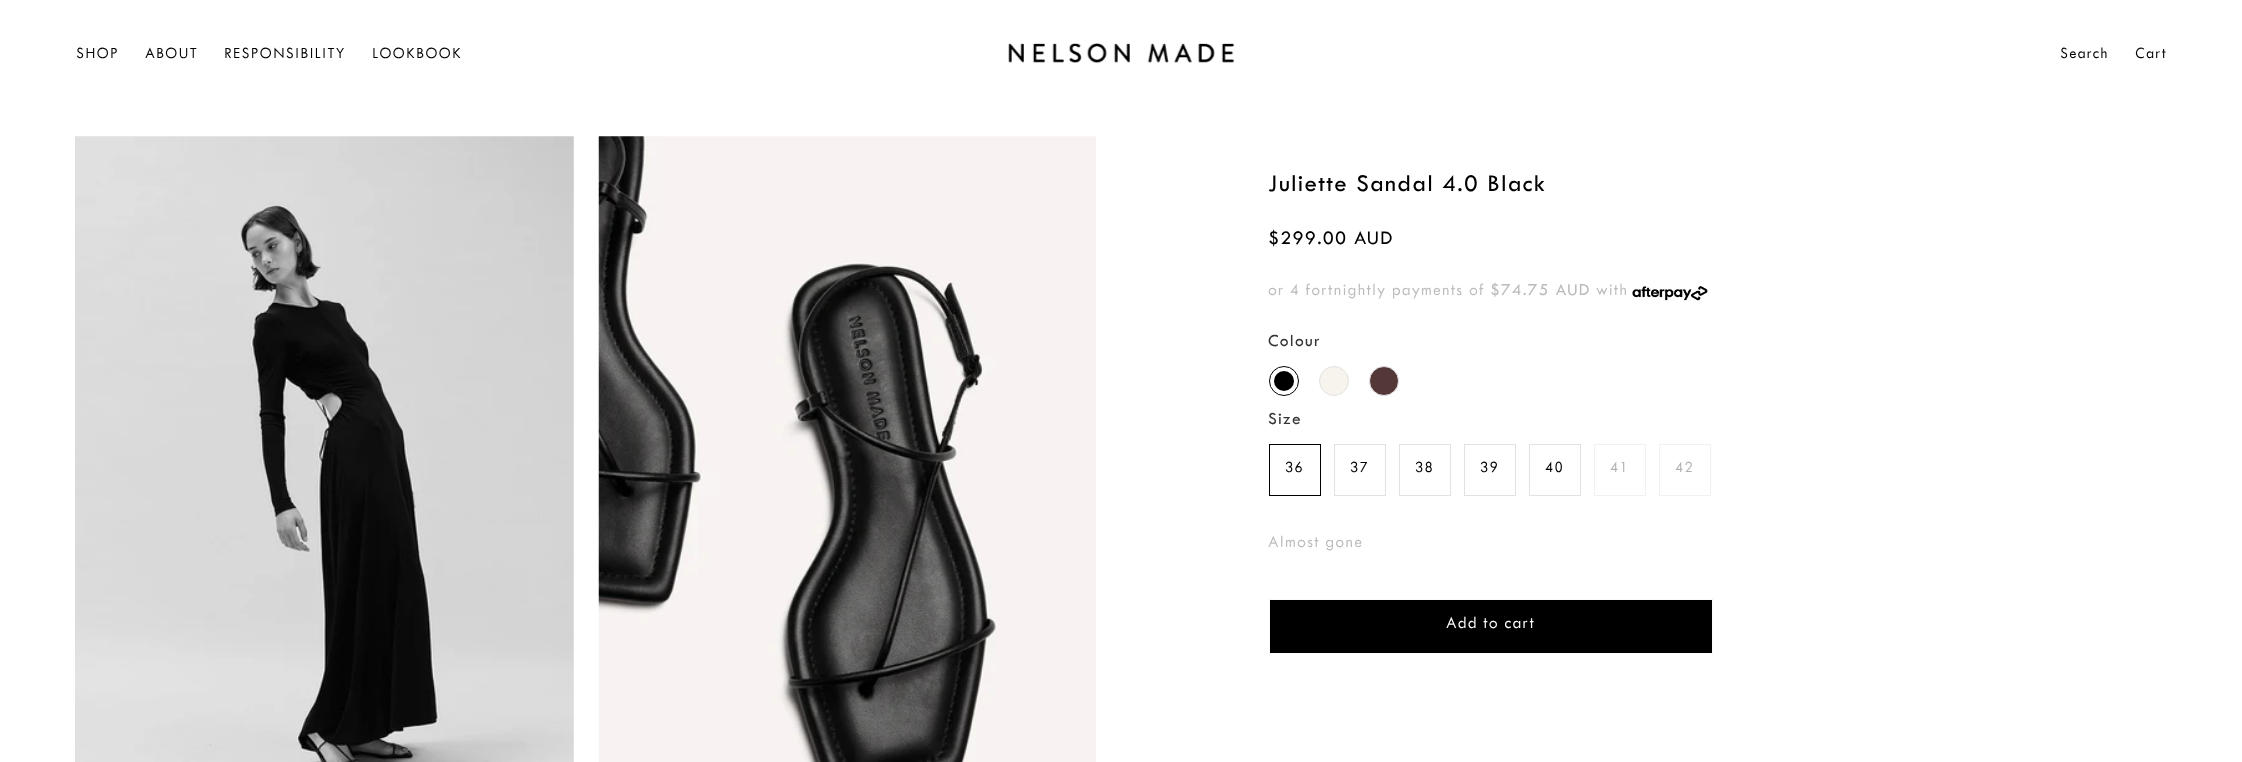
<!DOCTYPE html>
<meta charset="utf-8">
<style>body { margin: 0 } canvas { display: block }</style>
<canvas id="canvas" width="2242" height="762"></canvas>
<img id="img1" src="img_01.png" hidden>
<img id="img2" src="img_02.png" hidden>
<img id="img3" src="img_03.png" hidden>
<img id="img4" src="img_04.png" hidden>
<script>
window.onload = function () {
	const canvas = document.getElementById("canvas");
	const ctx = canvas.getContext("2d");
	ctx.miterLimit = 4;
	ctx.fontKerning = "normal";
	function txt(s, x, y) {
		ctx.fillText(s, x, y);
	}
	function fill(x, y, w, h) {
		ctx.fillRect(x, y, w, h);
	}
	function img(id, x, y, w, h) {
		ctx.drawImage(document.getElementById(id), x, y, w, h);
	}

	ctx.fillStyle = "#FFFFFF";
	fill(0, 0, 2242, 762);
	img("img1", 1008, 43, 226, 20);
	img("img2", 75, 136, 499, 626);
	img("img3", 598, 136, 498, 626);
	img("img4", 1632, 286, 76, 15);
	ctx.beginPath();
	ctx.arc(1284, 381, 14.5, 0, Math.PI * 2);
	ctx.strokeStyle = "#000000";
	ctx.stroke();
	ctx.fillStyle = "#000000";
	ctx.beginPath();
	ctx.arc(1284, 381, 10, 0, Math.PI * 2);
	ctx.fill();
	ctx.fillStyle = "#F7F3ED";
	ctx.beginPath();
	ctx.arc(1334, 381, 14.5, 0, Math.PI * 2);
	ctx.fill();
	ctx.strokeStyle = "#E2E2E2";
	ctx.stroke();
	ctx.fillStyle = "#533837";
	ctx.beginPath();
	ctx.arc(1384, 381, 14.5, 0, Math.PI * 2);
	ctx.fill();
	ctx.stroke();
	ctx.strokeStyle = "#000000";
	ctx.strokeRect(1269.5, 444.5, 51, 51);
	ctx.strokeStyle = "#E2E2E2";
	ctx.strokeRect(1334.5, 444.5, 51, 51);
	ctx.strokeRect(1399.5, 444.5, 51, 51);
	ctx.strokeRect(1464.5, 444.5, 51, 51);
	ctx.strokeRect(1529.5, 444.5, 51, 51);
	ctx.strokeStyle = "#F1F1F1";
	ctx.strokeRect(1594.5, 444.5, 51, 51);
	ctx.strokeRect(1659.5, 444.5, 51, 51);
	ctx.fillStyle = "#000000";
	ctx.beginPath();
	ctx.rect(1269.5, 599.5, 443, 54);
	ctx.fill();
	ctx.strokeStyle = "#FCFAF8";
	ctx.stroke();
	ctx.letterSpacing = "1.25px";
	ctx.font = "500 16.25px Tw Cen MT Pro";
	txt("SHOP", 76, 58);
	txt("ABOUT", 145, 58);
	txt("RESPONSIBILITY", 224, 58);
	txt("LOOKBOOK", 372, 58);
	txt("Search", 2060, 58);
	txt("Cart", 2135, 58);
	ctx.font = "500 25px 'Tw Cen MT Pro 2'";
	txt("Juliette Sandal 4.0 Black", 1268, 191);
	ctx.font = "500 20px 'Tw Cen MT Pro 2'";
	txt("$299.00 AUD", 1268, 244);
	ctx.font = "500 17.5px Tw Cen MT Pro";
	ctx.fillStyle = "#BCBCBC";
	txt("or 4 fortnightly payments of", 1268, 295);
	ctx.font = "500 17.5px 'Tw Cen MT Pro 2'";
	txt("$74.75 AUD", 1490, 295);
	ctx.font = "500 17.5px Tw Cen MT Pro";
	txt("with", 1596, 295);
	ctx.font = "500 17.5px 'Tw Cen MT Pro 2'";
	ctx.fillStyle = "#363636";
	txt("Colour", 1268, 346);
	txt("Size", 1268, 424);
	ctx.font = "500 16.25px Tw Cen MT Pro";
	ctx.fillStyle = "#000000";
	txt("36", 1285, 472);
	txt("37", 1350, 472);
	txt("38", 1415, 472);
	txt("39", 1480, 472);
	txt("40", 1545, 472);
	ctx.fillStyle = "#B3B3B3";
	txt("41", 1610, 472);
	txt("42", 1675, 472);
	ctx.font = "500 17.5px Tw Cen MT Pro";
	ctx.fillStyle = "#BCBCBC";
	txt("Almost gone", 1268, 547);
	ctx.fillStyle = "#FCFAF8";
	txt("Add to cart", 1446, 628);
};
</script>
